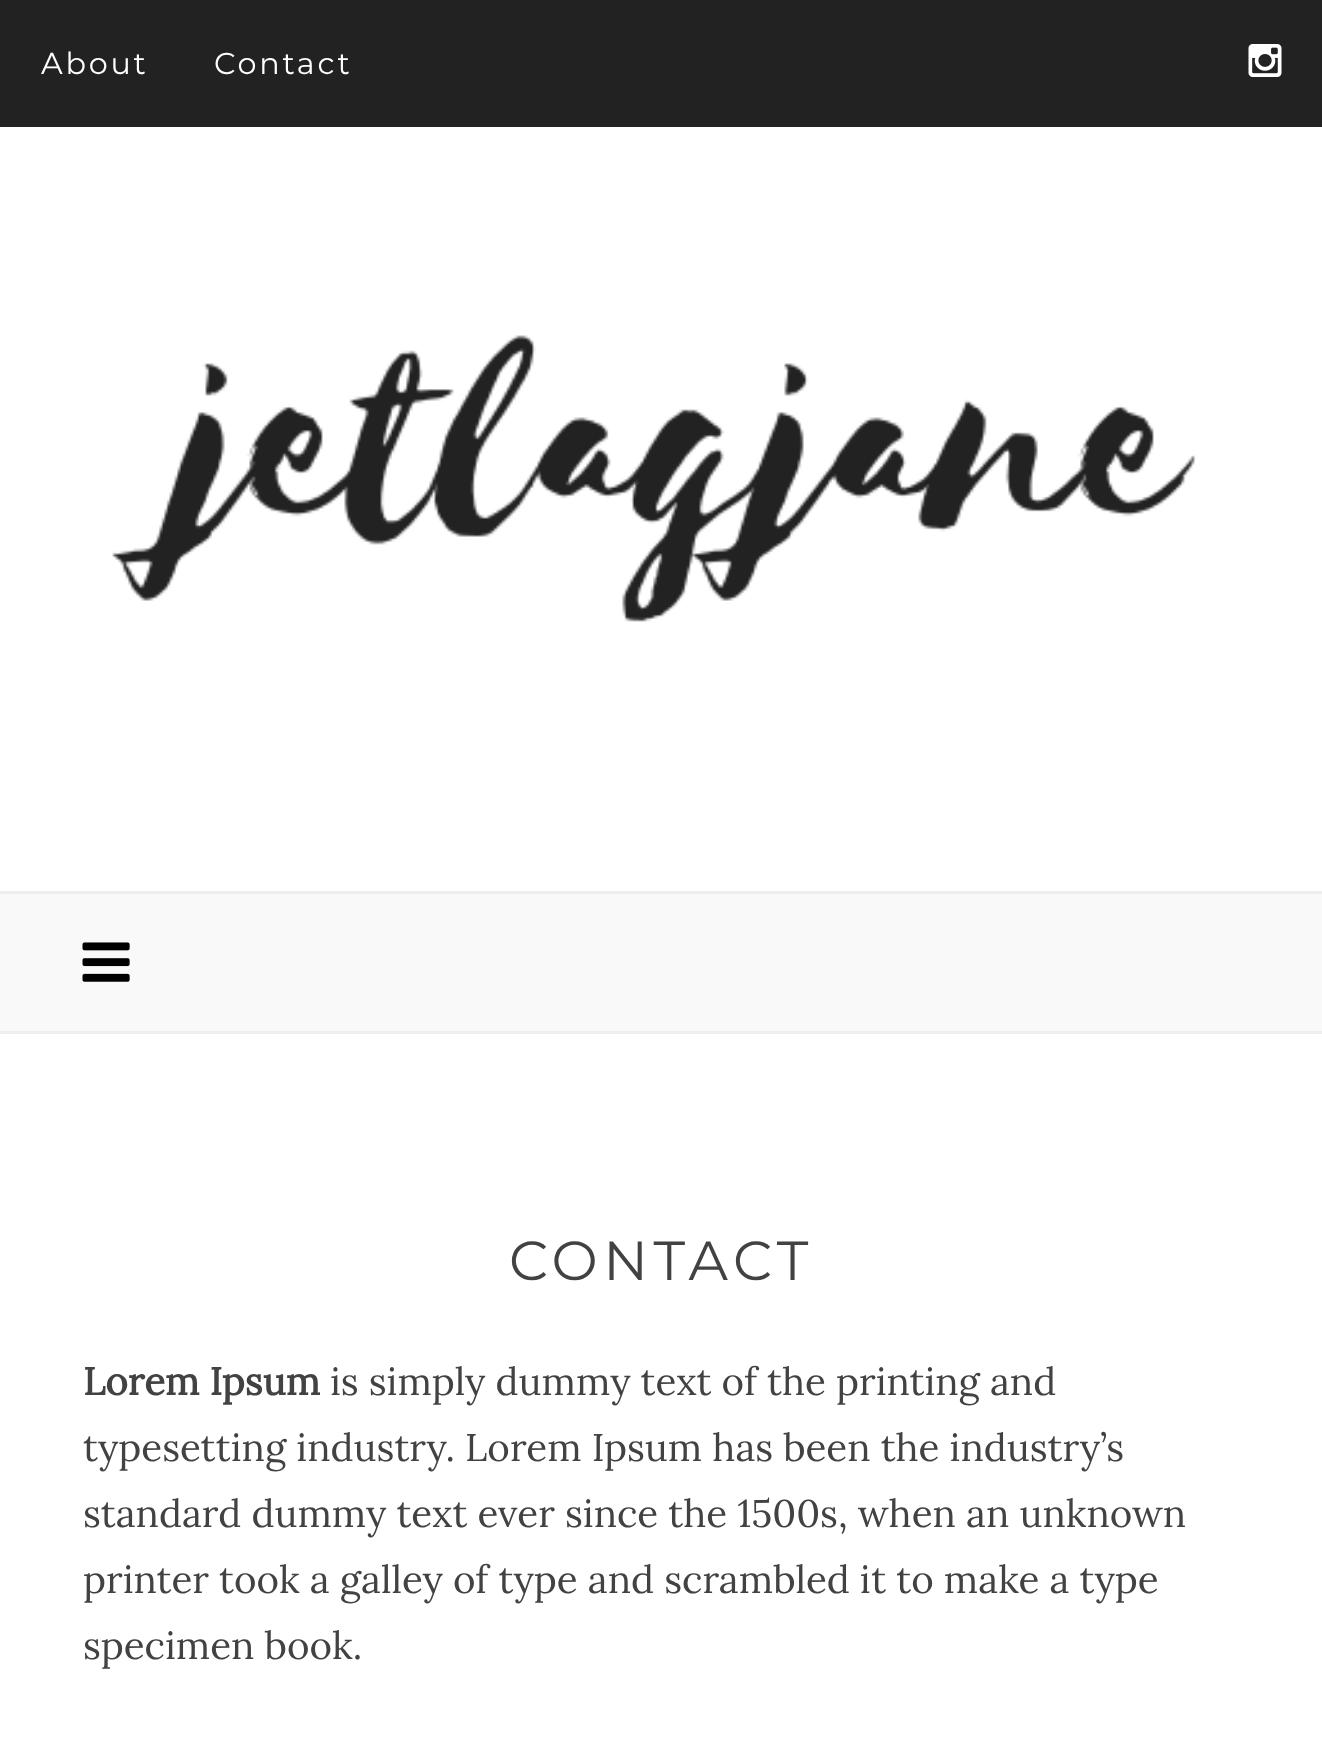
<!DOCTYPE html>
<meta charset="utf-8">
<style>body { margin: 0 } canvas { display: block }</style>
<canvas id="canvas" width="1322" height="1754"></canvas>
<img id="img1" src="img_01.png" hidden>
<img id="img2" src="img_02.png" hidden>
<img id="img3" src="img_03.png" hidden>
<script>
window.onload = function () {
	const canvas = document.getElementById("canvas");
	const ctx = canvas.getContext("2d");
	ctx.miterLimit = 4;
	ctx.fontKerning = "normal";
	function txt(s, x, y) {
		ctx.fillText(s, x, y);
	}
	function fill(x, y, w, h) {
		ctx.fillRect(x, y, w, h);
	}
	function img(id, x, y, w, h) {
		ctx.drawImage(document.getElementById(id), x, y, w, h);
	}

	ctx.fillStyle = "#FFFFFF";
	fill(0, 0, 1322, 1754);
	ctx.fillStyle = "#222222";
	fill(0, 0, 1322, 127);
	img("img1", 1248, 44, 34, 33);
	img("img2", 112, 335, 1085, 287);
	ctx.fillStyle = "#F9F9F9";
	fill(0, 894, 1322, 137);
	ctx.fillStyle = "#EEEEEE";
	fill(0, 891, 1322, 3);
	fill(0, 1031, 1322, 3);
	img("img3", 82, 942, 48, 40);
	ctx.letterSpacing = "2.75px";
	ctx.font = "30.25px Montserrat";
	ctx.fillStyle = "#FFFFFF";
	txt("About", 41, 74);
	txt("Contact", 214, 74);
	ctx.letterSpacing = "5.5px";
	ctx.font = "55px Montserrat";
	ctx.fillStyle = "#424242";
	txt("CONTACT", 509, 1280);
	ctx.letterSpacing = "0px";
	ctx.font = "bold 38.5px Lora";
	txt("Lorem Ipsum", 83, 1395);
	ctx.font = "38.5px Lora";
	txt("is simply dummy text of the printing and", 330, 1395);
	txt("typesetting industry. Lorem Ipsum has been the industry’s", 83, 1461);
	txt("standard dummy text ever since the 1500s, when an unknown", 83, 1527);
	txt("printer took a galley of type and scrambled it to make a type", 83, 1593);
	txt("specimen book.", 83, 1659);
};
</script>
